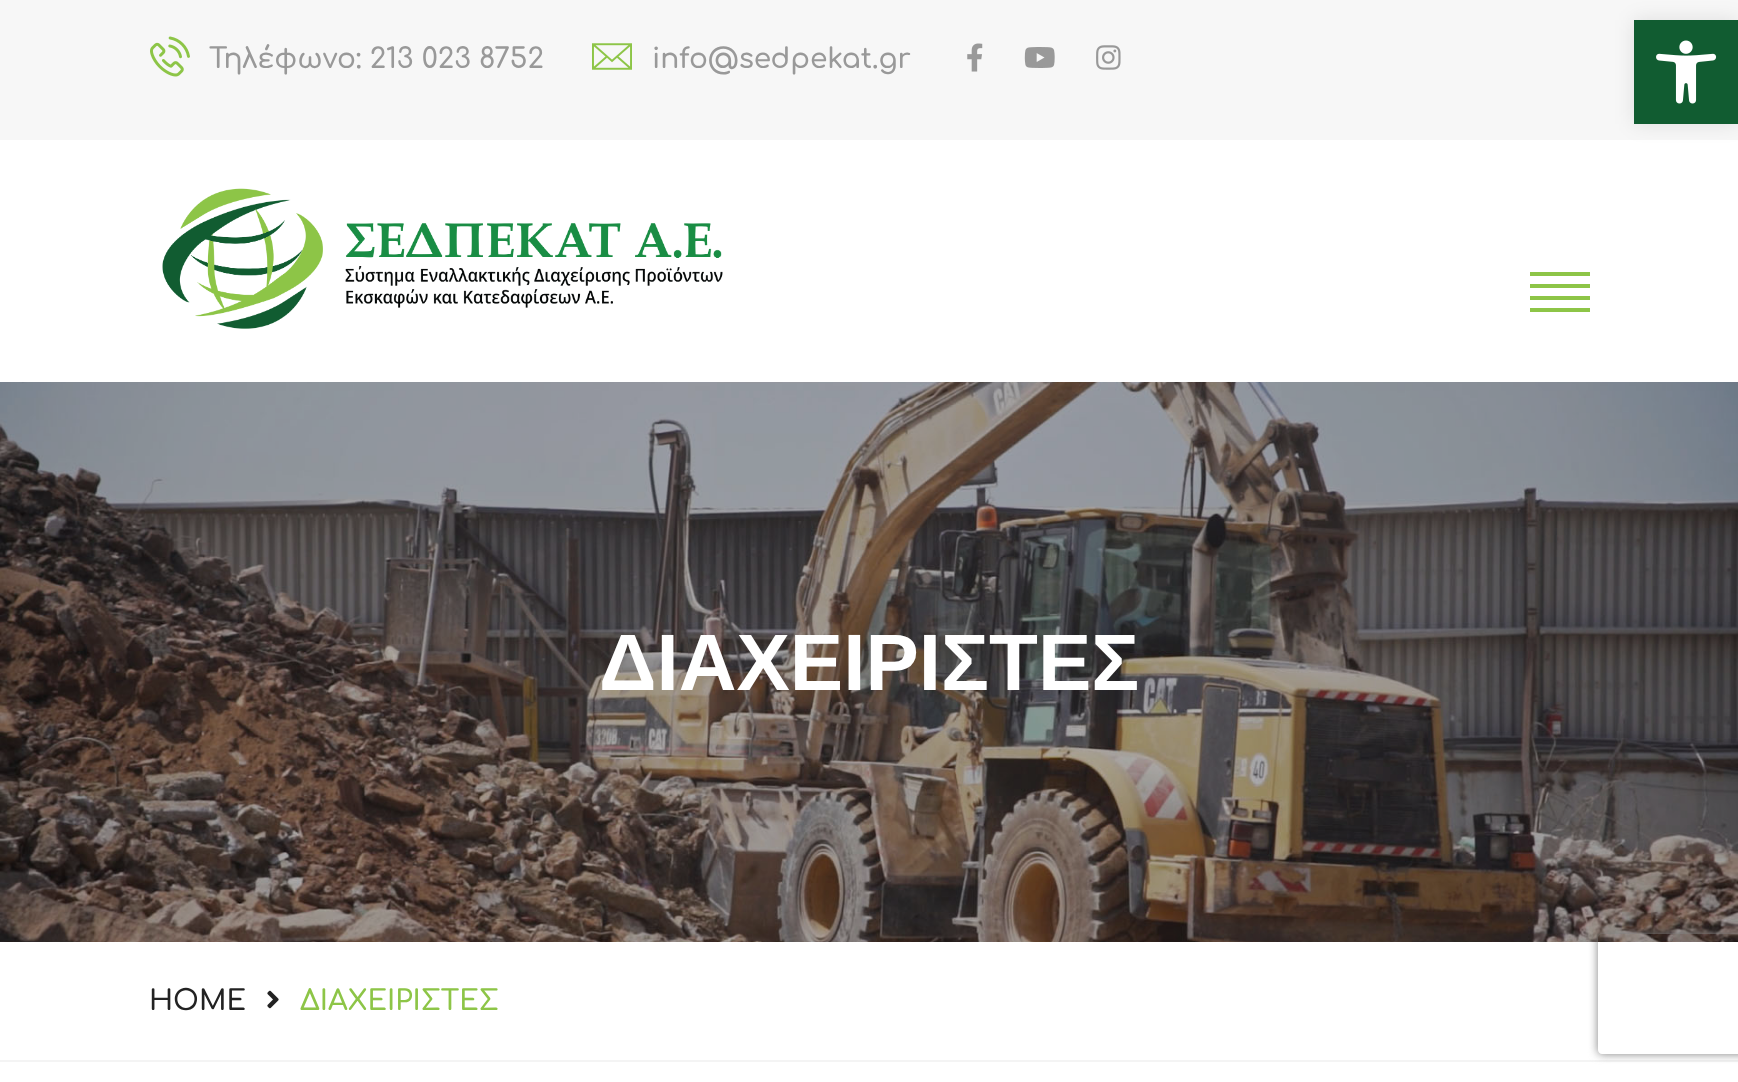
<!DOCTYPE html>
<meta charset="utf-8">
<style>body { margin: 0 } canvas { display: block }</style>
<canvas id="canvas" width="1738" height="1082"></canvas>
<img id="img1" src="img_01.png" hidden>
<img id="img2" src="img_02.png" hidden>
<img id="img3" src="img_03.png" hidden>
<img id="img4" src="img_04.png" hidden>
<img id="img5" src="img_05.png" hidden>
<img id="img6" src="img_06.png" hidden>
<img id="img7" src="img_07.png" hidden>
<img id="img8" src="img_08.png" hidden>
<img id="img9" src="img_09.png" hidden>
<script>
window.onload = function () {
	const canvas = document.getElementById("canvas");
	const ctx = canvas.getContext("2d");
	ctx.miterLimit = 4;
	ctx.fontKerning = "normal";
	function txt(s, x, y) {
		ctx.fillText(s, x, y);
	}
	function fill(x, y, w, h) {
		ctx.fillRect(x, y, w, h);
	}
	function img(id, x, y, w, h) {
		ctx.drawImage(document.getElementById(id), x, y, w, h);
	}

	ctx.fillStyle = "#FFFFFF";
	fill(0, 0, 1738, 1082);
	ctx.fillStyle = "#F7F7F7";
	fill(0, 0, 1738, 140);
	img("img1", 150, 36, 40, 41);
	img("img2", 592, 43, 40, 27);
	img("img3", 967, 43, 16, 29);
	img("img4", 1024, 47, 31, 21);
	img("img5", 1096, 45, 25, 25);
	img("img6", 162, 188, 561, 141);
	ctx.fillStyle = "#8DC547";
	fill(1530, 272, 60, 4);
	fill(1530, 284, 60, 4);
	fill(1530, 296, 60, 4);
	fill(1530, 308, 60, 4);
	img("img7", 0, 382, 1738, 560);
	ctx.fillStyle = "#F4F4F4";
	fill(0, 1060, 1738, 2);
	img("img8", 267, 990, 12, 19);
	ctx.fillStyle = "rgba(0, 0, 0, 0.1)";
	ctx.filter = "blur(10px)";
	ctx.beginPath();
	ctx.rect(1634, 20, 104, 104);
	ctx.fill();
	ctx.filter = "none";
	ctx.fillStyle = "#115C31";
	fill(1634, 20, 104, 104);
	img("img9", 1656, 40, 61, 64);
	ctx.save();
	ctx.beginPath();
	ctx.moveTo(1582, 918);
	ctx.lineTo(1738, 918);
	ctx.lineTo(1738, 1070);
	ctx.lineTo(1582, 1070);
	ctx.closePath();
	ctx.moveTo(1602, 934);
	ctx.lineTo(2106, 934);
	ctx.bezierCurveTo(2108, 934, 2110, 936, 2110, 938);
	ctx.lineTo(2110, 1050);
	ctx.bezierCurveTo(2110, 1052, 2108, 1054, 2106, 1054);
	ctx.lineTo(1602, 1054);
	ctx.bezierCurveTo(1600, 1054, 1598, 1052, 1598, 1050);
	ctx.lineTo(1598, 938);
	ctx.bezierCurveTo(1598, 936, 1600, 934, 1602, 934);
	ctx.closePath();
	ctx.clip("evenodd");
	ctx.fillStyle = "#808080";
	ctx.filter = "blur(5px)";
	ctx.beginPath();
	ctx.roundRect(1598, 934, 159, 120, 4);
	ctx.fill();
	ctx.filter = "none";
	ctx.restore();
	ctx.font = "600 28px Comfortaa";
	ctx.fillStyle = "#999999";
	txt("Τηλέφωνο: 213 023 8752", 209, 68);
	txt("info@sedpekat.gr", 652, 68);
	ctx.font = "bold 80px Liberation Sans";
	ctx.fillStyle = "#FFFFFF";
	txt("ΔΙΑΧΕΙΡΙΣΤΕΣ", 599, 690);
	ctx.font = "600 28px Comfortaa";
	ctx.fillStyle = "#222222";
	txt("HOME", 149, 1010);
	ctx.fillStyle = "#8DC547";
	txt("ΔΙΑΧΕΙΡΙΣΤΕΣ", 300, 1010);
};
</script>
